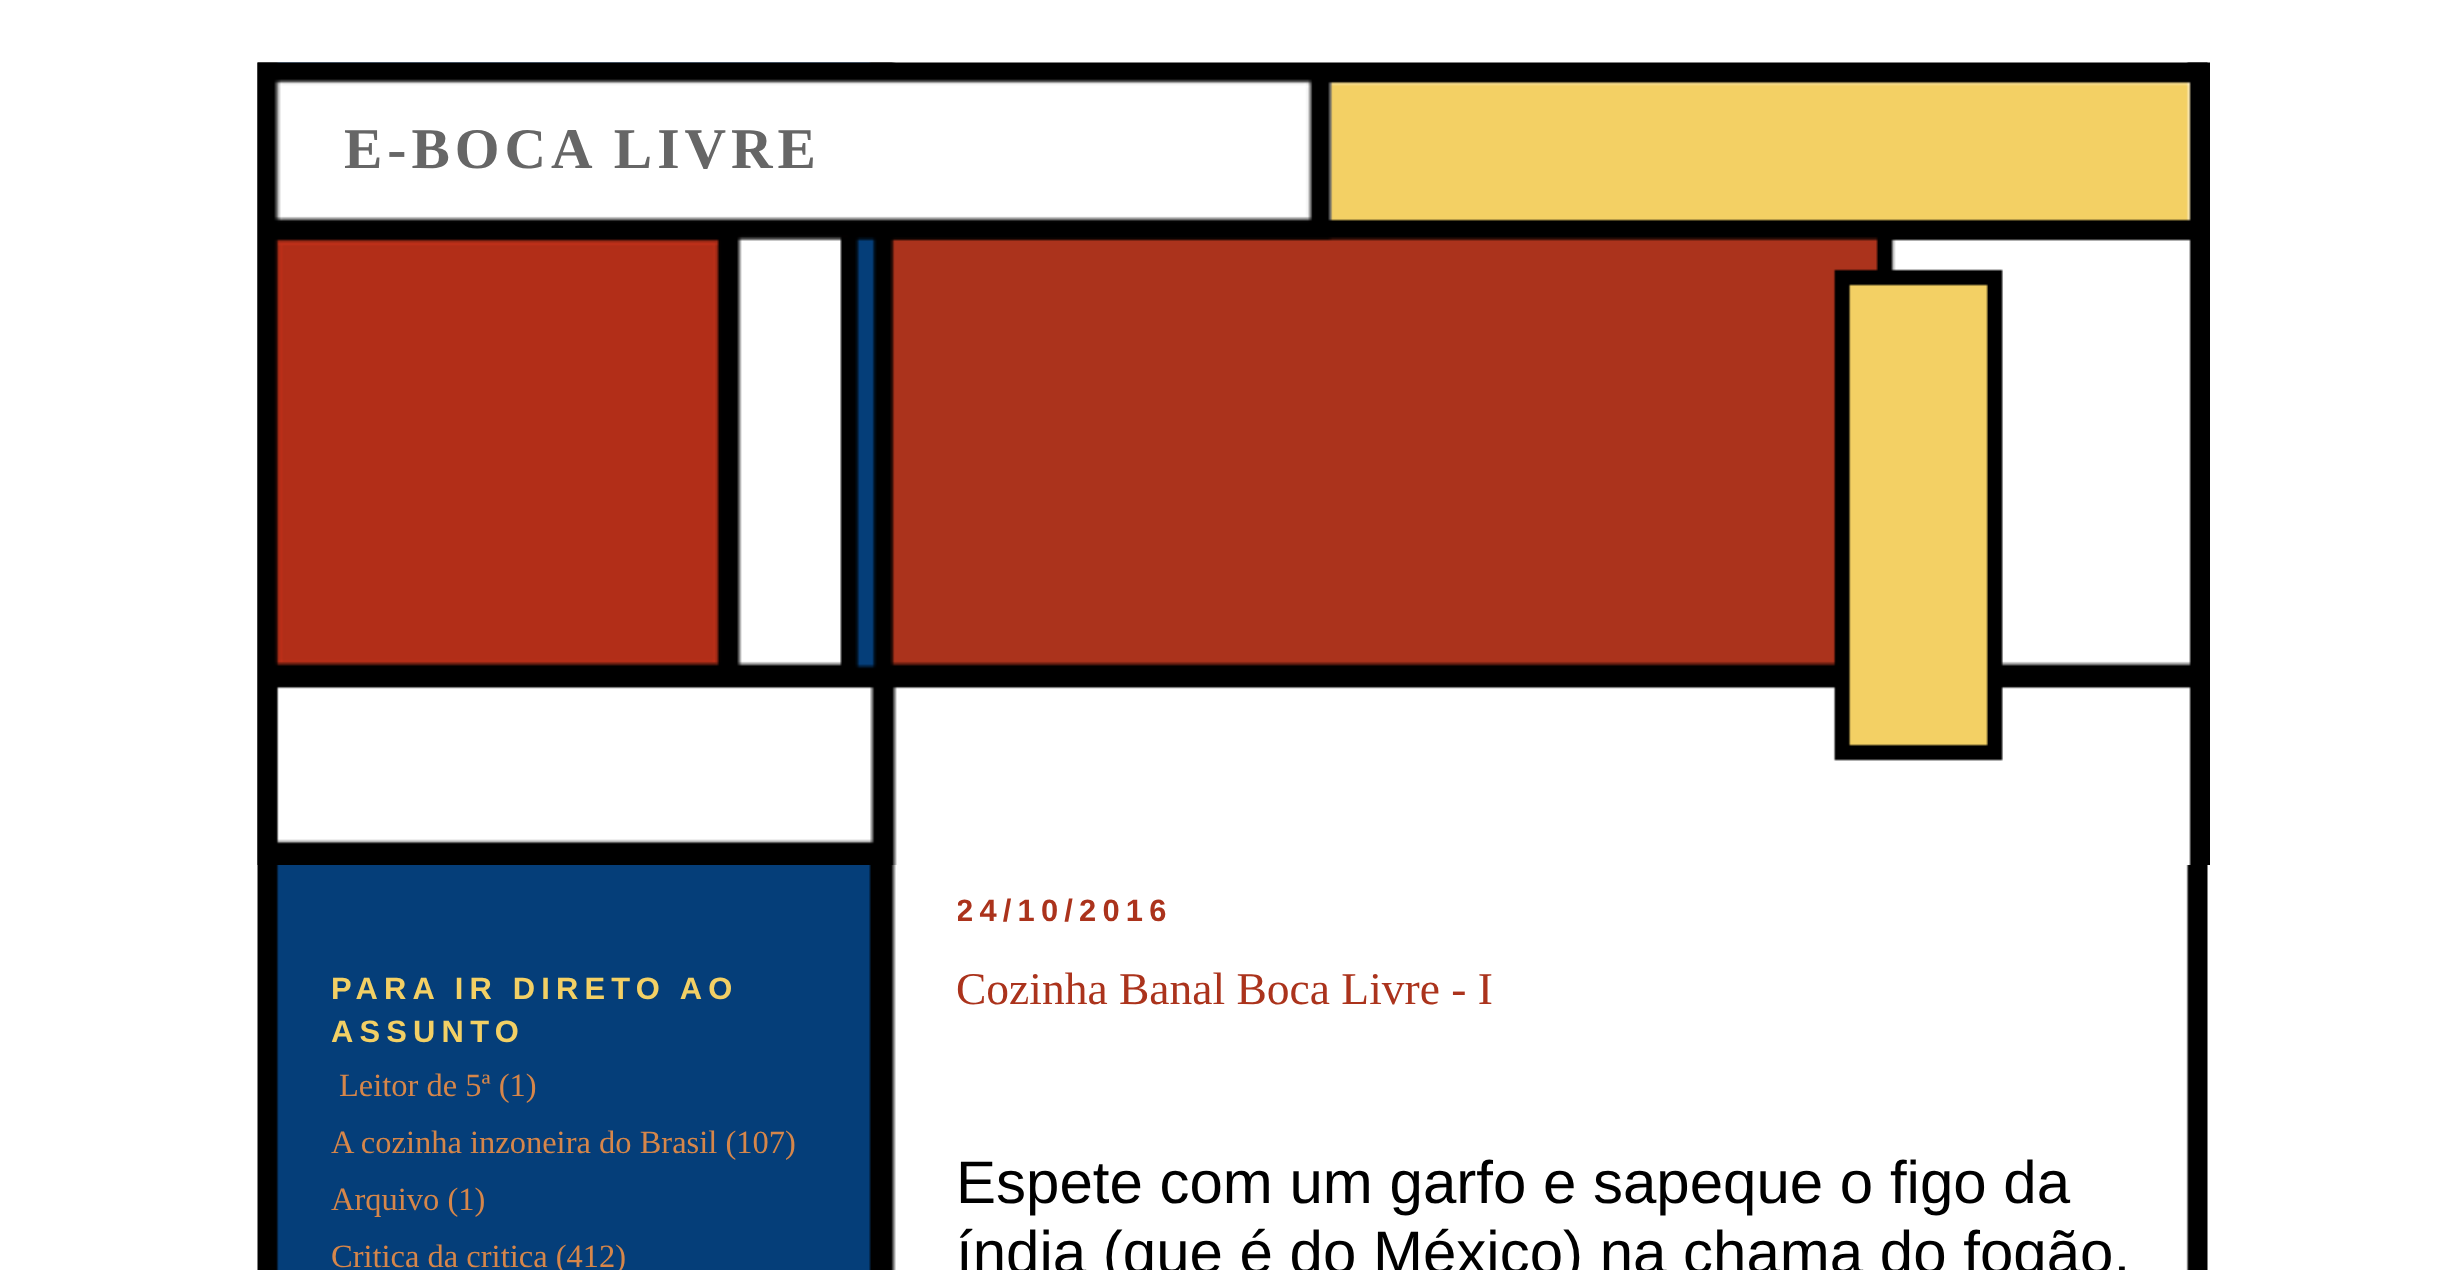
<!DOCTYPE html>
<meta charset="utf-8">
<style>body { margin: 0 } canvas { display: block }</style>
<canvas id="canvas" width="2462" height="1270"></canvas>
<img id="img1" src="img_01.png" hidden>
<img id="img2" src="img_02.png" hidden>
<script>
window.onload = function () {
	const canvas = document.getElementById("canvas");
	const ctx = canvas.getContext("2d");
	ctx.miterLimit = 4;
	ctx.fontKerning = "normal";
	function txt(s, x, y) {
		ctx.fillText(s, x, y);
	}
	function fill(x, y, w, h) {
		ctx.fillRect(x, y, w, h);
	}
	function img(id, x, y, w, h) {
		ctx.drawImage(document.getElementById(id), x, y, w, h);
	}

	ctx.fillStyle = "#FFFFFF";
	fill(0, 0, 2462, 1270);
	img("img1", 257, 62, 1951, 1208);
	img("img2", 257, 62, 1953, 803);
	ctx.letterSpacing = "5px";
	ctx.font = "bold 57.5px Liberation Serif";
	ctx.fillStyle = "#666666";
	txt("E-BOCA LIVRE", 344, 168);
	ctx.letterSpacing = "6.2px";
	ctx.font = "bold 30.9px Liberation Sans";
	ctx.fillStyle = "#F3D065";
	txt("PARA IR DIRETO AO", 331, 999);
	txt("ASSUNTO", 331, 1042);
	ctx.letterSpacing = "0px";
	ctx.font = "32.5px Liberation Serif";
	ctx.fillStyle = "#D6864A";
	txt("Leitor de 5ª (1)", 339, 1096);
	txt("A cozinha inzoneira do Brasil (107)", 331, 1153);
	txt("Arquivo (1)", 331, 1210);
	txt("Critica da critica (412)", 331, 1267);
	ctx.save();
	ctx.beginPath();
	ctx.rect(958, 865, 1250, 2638);
	ctx.clip();
	ctx.letterSpacing = "6.2px";
	ctx.font = "bold 30.9px Liberation Sans";
	ctx.fillStyle = "#AB331C";
	txt("24/10/2016", 956, 921);
	ctx.restore();
	ctx.font = "45.5px Liberation Serif";
	ctx.fillStyle = "#AB331C";
	txt("Cozinha Banal Boca Livre - I", 956, 1004);
	ctx.font = "60px Liberation Sans";
	ctx.fillStyle = "#000000";
	txt("Espete com um garfo e sapeque o figo da", 956, 1203);
	txt("índia (que é do México) na chama do fogão,", 956, 1273);
};
</script>
